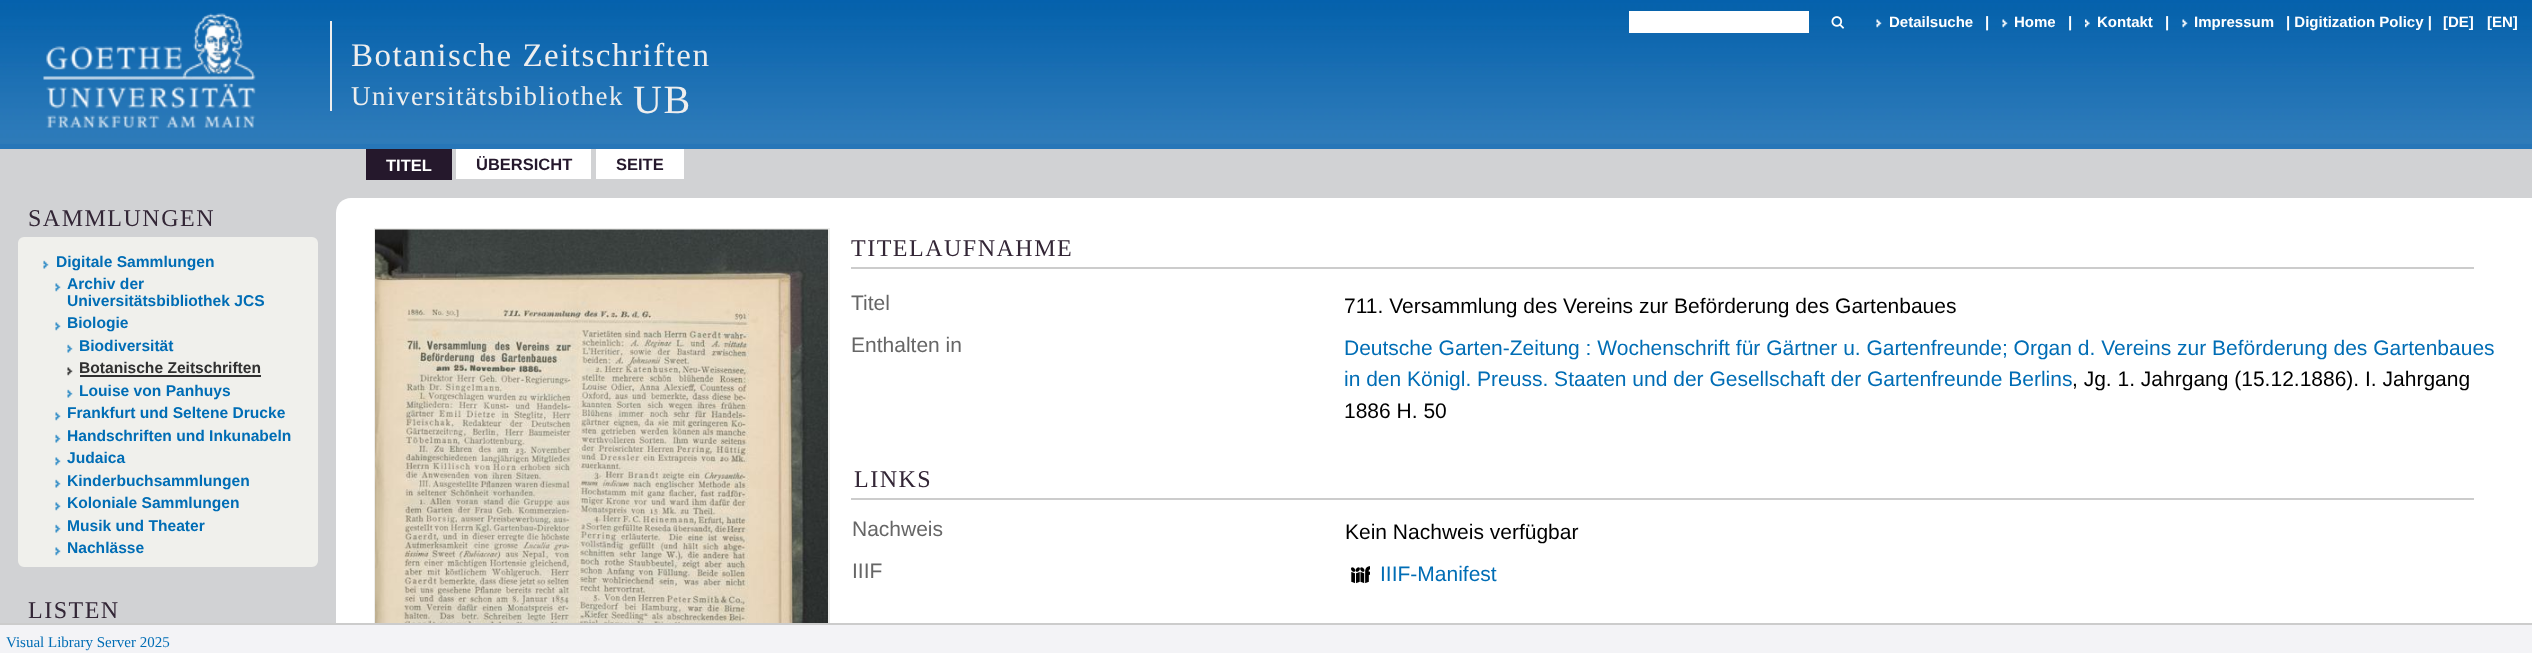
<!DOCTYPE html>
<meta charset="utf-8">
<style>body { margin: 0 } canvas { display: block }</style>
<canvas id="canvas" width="2532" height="653"></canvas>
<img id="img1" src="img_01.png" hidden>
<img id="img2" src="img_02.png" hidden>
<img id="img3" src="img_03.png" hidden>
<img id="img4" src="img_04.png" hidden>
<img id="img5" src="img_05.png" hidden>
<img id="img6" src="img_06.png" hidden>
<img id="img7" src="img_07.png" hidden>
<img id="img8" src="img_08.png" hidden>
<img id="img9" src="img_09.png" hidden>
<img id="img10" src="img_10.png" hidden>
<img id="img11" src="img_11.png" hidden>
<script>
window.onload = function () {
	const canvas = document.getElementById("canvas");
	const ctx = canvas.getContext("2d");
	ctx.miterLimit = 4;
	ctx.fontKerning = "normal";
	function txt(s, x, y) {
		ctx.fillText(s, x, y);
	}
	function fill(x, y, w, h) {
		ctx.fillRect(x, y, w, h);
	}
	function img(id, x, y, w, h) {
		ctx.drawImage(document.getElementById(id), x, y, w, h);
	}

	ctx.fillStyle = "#2776B8";
	fill(0, 0, 2532, 653);
	img("img1", 0, 0, 2532, 144);
	img("img2", 43, 13, 213, 115);
	ctx.fillStyle = "#FFFFFF";
	fill(1629, 11, 180, 22);
	img("img3", 1831, 16, 14, 13);
	img("img4", 1876, 19, 6, 9);
	img("img5", 2002, 19, 6, 9);
	img("img6", 2085, 19, 5, 9);
	img("img4", 2182, 19, 6, 9);
	ctx.fillStyle = "#EEEEEE";
	fill(330, 21, 2, 90);
	ctx.fillStyle = "#D1D2D4";
	fill(0, 149, 2532, 49);
	ctx.fillStyle = "#25182C";
	fill(366, 149, 86, 31);
	ctx.fillStyle = "#FFFFFF";
	fill(456, 149, 135, 30);
	fill(596, 149, 88, 30);
	ctx.fillStyle = "#D1D2D4";
	fill(0, 198, 351, 425);
	ctx.fillStyle = "#F0F0EC";
	ctx.beginPath();
	ctx.roundRect(19, 238, 298, 328, 5);
	ctx.fill();
	ctx.strokeStyle = "#F0F0EC";
	ctx.lineWidth = 2;
	ctx.stroke();
	img("img7", 43, 260, 6, 9);
	img("img8", 55, 283, 6, 9);
	img("img8", 55, 322, 6, 9);
	img("img7", 67, 344, 6, 9);
	img("img9", 67, 367, 6, 9);
	ctx.fillStyle = "#303030";
	fill(80, 375, 181, 2);
	img("img7", 67, 389, 6, 9);
	img("img8", 55, 412, 6, 9);
	img("img7", 55, 434, 6, 9);
	img("img8", 55, 457, 6, 9);
	img("img7", 55, 479, 6, 9);
	img("img8", 55, 502, 6, 9);
	img("img7", 55, 524, 6, 9);
	img("img8", 55, 547, 6, 9);
	ctx.fillStyle = "#FFFFFF";
	ctx.beginPath();
	ctx.moveTo(351, 198);
	ctx.lineTo(2532, 198);
	ctx.lineTo(2532, 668);
	ctx.lineTo(336, 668);
	ctx.lineTo(336, 213);
	ctx.bezierCurveTo(336, 204.5, 342.5, 198, 351, 198);
	ctx.closePath();
	ctx.fill();
	ctx.strokeStyle = "#EEEEEC";
	ctx.strokeRect(375, 229, 454, 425);
	img("img10", 375, 229, 453, 394);
	ctx.fillStyle = "#CCCCCC";
	fill(851, 267, 1623, 2);
	fill(851, 498, 1623, 2);
	img("img11", 1351, 566, 19, 18);
	ctx.fillStyle = "#F3F3F6";
	fill(0, 625, 2532, 28);
	ctx.fillStyle = "#CCCCCC";
	fill(0, 623, 2532, 2);
	ctx.font = "bold 15px Liberation Sans";
	ctx.fillStyle = "#FFFFFF";
	txt("Detailsuche", 1889, 27);
	txt("|", 1985, 27);
	txt("Home", 2014, 27);
	txt("|", 2068, 27);
	txt("Kontakt", 2097, 27);
	txt("|", 2165, 27);
	txt("Impressum", 2194, 27);
	txt("| Digitization Policy |", 2286, 27);
	txt("[DE]", 2443, 27);
	txt("[EN]", 2487, 27);
	ctx.letterSpacing = "1.5px";
	ctx.font = "33px Liberation Serif";
	ctx.fillStyle = "#EEEEEE";
	txt("Botanische Zeitschriften", 351, 66);
	ctx.font = "27px Liberation Serif";
	txt("Universitätsbibliothek", 351, 105);
	ctx.font = "40px Liberation Serif";
	txt("UB", 633, 113);
	ctx.letterSpacing = "0px";
	ctx.font = "bold 16.5px Liberation Sans";
	ctx.fillStyle = "#FFFFFF";
	txt("TITEL", 386, 171);
	ctx.fillStyle = "#25182C";
	txt("ÜBERSICHT", 476, 170);
	txt("SEITE", 616, 170);
	ctx.letterSpacing = "1.5px";
	ctx.font = "24px Liberation Serif";
	ctx.fillStyle = "#332636";
	txt("SAMMLUNGEN", 28, 226);
	ctx.letterSpacing = "0px";
	ctx.font = "bold 15.6px Liberation Sans";
	ctx.fillStyle = "#006DB5";
	txt("Digitale Sammlungen", 56, 267);
	txt("Archiv der", 67, 289);
	txt("Universitätsbibliothek JCS", 67, 306);
	txt("Biologie", 67, 328);
	txt("Biodiversität", 79, 351);
	ctx.fillStyle = "#303030";
	txt("Botanische Zeitschriften", 79, 373);
	ctx.fillStyle = "#006DB5";
	txt("Louise von Panhuys", 79, 396);
	txt("Frankfurt und Seltene Drucke", 67, 418);
	txt("Handschriften und Inkunabeln", 67, 441);
	txt("Judaica", 67, 463);
	txt("Kinderbuchsammlungen", 67, 486);
	txt("Koloniale Sammlungen", 67, 508);
	txt("Musik und Theater", 67, 531);
	txt("Nachlässe", 67, 553);
	ctx.letterSpacing = "1.5px";
	ctx.font = "24px Liberation Serif";
	ctx.fillStyle = "#332636";
	txt("LISTEN", 28, 618);
	txt("TITELAUFNAHME", 851, 256);
	ctx.letterSpacing = "0px";
	ctx.font = "21px Liberation Sans";
	ctx.fillStyle = "#666666";
	txt("Titel", 851, 310);
	ctx.fillStyle = "#000000";
	txt("711. Versammlung des Vereins zur Beförderung des Gartenbaues", 1344, 313);
	ctx.fillStyle = "#666666";
	txt("Enthalten in", 851, 352);
	ctx.fillStyle = "#006DB5";
	txt("Deutsche Garten-Zeitung : Wochenschrift für Gärtner u. Gartenfreunde; Organ d. Vereins zur Beförderung des Gartenbaues", 1344, 355);
	txt("in den Königl. Preuss. Staaten und der Gesellschaft der Gartenfreunde Berlins", 1344, 386);
	ctx.fillStyle = "#000000";
	txt(", Jg. 1. Jahrgang (15.12.1886). I. Jahrgang", 2072, 386);
	txt("1886 H. 50", 1344, 418);
	ctx.letterSpacing = "1.5px";
	ctx.font = "24px Liberation Serif";
	ctx.fillStyle = "#332636";
	txt("LINKS", 854, 487);
	ctx.letterSpacing = "0px";
	ctx.font = "21px Liberation Sans";
	ctx.fillStyle = "#666666";
	txt("Nachweis", 852, 536);
	ctx.fillStyle = "#000000";
	txt("Kein Nachweis verfügbar", 1345, 539);
	ctx.fillStyle = "#666666";
	txt("IIIF", 852, 578);
	ctx.fillStyle = "#006DB5";
	txt("IIIF-Manifest", 1380, 581);
	ctx.font = "15px Liberation Serif";
	txt("Visual Library Server 2025", 6, 647);
};
</script>
